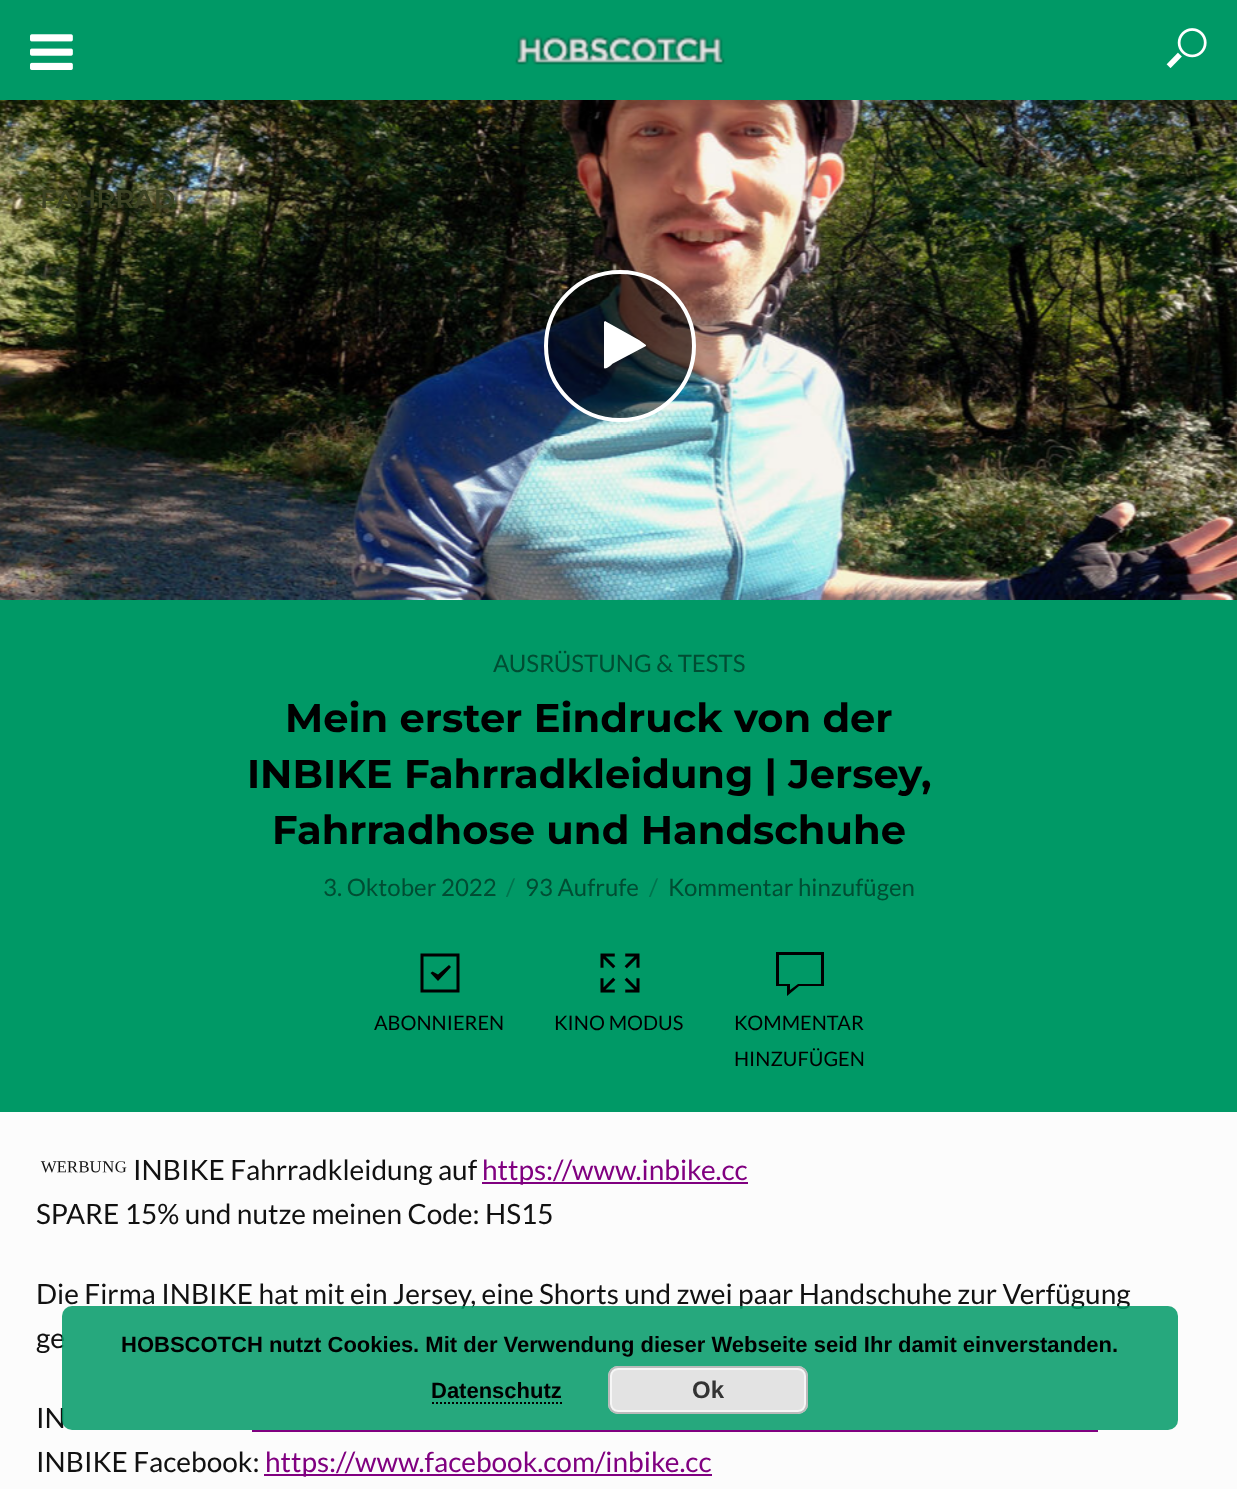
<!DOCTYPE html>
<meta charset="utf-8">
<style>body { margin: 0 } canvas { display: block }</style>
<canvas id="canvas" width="1237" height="1489"></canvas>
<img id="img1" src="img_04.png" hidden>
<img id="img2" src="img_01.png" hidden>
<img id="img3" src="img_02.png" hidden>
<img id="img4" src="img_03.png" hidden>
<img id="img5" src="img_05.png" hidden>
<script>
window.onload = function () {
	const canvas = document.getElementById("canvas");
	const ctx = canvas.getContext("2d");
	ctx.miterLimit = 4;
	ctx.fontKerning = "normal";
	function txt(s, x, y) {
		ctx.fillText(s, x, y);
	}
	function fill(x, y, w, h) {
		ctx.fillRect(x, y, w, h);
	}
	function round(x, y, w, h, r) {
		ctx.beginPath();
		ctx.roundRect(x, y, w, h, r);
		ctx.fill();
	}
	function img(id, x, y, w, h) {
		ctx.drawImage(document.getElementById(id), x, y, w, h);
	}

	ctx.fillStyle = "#FCFCFC";
	fill(0, 0, 1237, 1489);
	img("img1", 0, 100, 1237, 500);
	ctx.fillStyle = "rgba(0, 0, 0, 0.15)";
	ctx.filter = "blur(20px)";
	ctx.beginPath();
	ctx.rect(0, 0, 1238, 100);
	ctx.fill();
	ctx.filter = "none";
	ctx.fillStyle = "#009966";
	fill(0, 0, 1237, 100);
	img("img2", 515, 35, 210, 30);
	img("img3", 1166, 28, 41, 40);
	img("img4", 30, 34, 43, 36);
	ctx.fillStyle = "rgba(0, 0, 0, 0.5)";
	ctx.beginPath();
	ctx.arc(620, 346, 74, 0, Math.PI * 2);
	ctx.fill();
	ctx.strokeStyle = "#FFFFFF";
	ctx.lineWidth = 4;
	ctx.stroke();
	ctx.fillStyle = "#FFFFFF";
	ctx.beginPath();
	ctx.moveTo(646, 346);
	ctx.lineTo(612, 364);
	ctx.bezierCurveTo(612, 365, 605, 370, 604, 368);
	ctx.lineTo(604, 322);
	ctx.lineTo(605, 321);
	ctx.lineTo(639, 340);
	ctx.lineTo(646, 345);
	ctx.closePath();
	ctx.fill();
	ctx.fillStyle = "#009966";
	fill(0, 600, 1237, 512);
	ctx.fillStyle = "#000000";
	ctx.beginPath();
	ctx.moveTo(420.5, 992.5);
	ctx.lineTo(459.5, 992.5);
	ctx.lineTo(459.5, 953.5);
	ctx.lineTo(420.5, 953.5);
	ctx.closePath();
	ctx.moveTo(423.5, 956.5);
	ctx.lineTo(456.5, 956.5);
	ctx.lineTo(456.5, 989.5);
	ctx.lineTo(423.5, 989.5);
	ctx.closePath();
	ctx.moveTo(438, 981);
	ctx.lineTo(451, 967);
	ctx.lineTo(449, 965);
	ctx.lineTo(438, 974.5);
	ctx.lineTo(432.5, 971.5);
	ctx.lineTo(430.5, 973);
	ctx.closePath();
	ctx.fill();
	img("img5", 600, 953, 40, 40);
	ctx.beginPath();
	ctx.moveTo(776, 986);
	ctx.lineTo(787, 986);
	ctx.lineTo(787, 996);
	ctx.lineTo(799, 986);
	ctx.lineTo(824, 986);
	ctx.lineTo(824, 952);
	ctx.lineTo(776, 952);
	ctx.closePath();
	ctx.moveTo(779, 955);
	ctx.lineTo(821, 955);
	ctx.lineTo(821, 984);
	ctx.lineTo(798, 984);
	ctx.lineTo(790, 990);
	ctx.lineTo(790, 984);
	ctx.lineTo(779, 984);
	ctx.closePath();
	ctx.fill();
	ctx.fillStyle = "#800080";
	fill(482, 1182, 266, 2);
	fill(252, 1430, 846, 2);
	fill(264, 1474, 448, 2);
	ctx.font = "600 26px Montserrat";
	ctx.fillStyle = "#3C4224";
	txt("FAHRRAD", 40, 208);
	ctx.font = "24px Lato";
	ctx.fillStyle = "#004D33";
	txt("AUSRÜSTUNG & TESTS", 493, 672);
	ctx.font = "bold 40px Montserrat";
	ctx.fillStyle = "#000000";
	txt("Mein erster Eindruck von der", 285, 732);
	txt("INBIKE Fahrradkleidung | Jersey,", 247, 788);
	txt("Fahrradhose und Handschuhe", 272, 844);
	ctx.font = "24px Lato";
	ctx.fillStyle = "#004D33";
	txt("3. Oktober 2022", 323, 896);
	ctx.fillStyle = "#00734D";
	txt("/", 506, 896);
	ctx.fillStyle = "#004D33";
	txt("93 Aufrufe", 525, 896);
	ctx.fillStyle = "#00734D";
	txt("/", 649, 896);
	ctx.fillStyle = "#004D33";
	txt("Kommentar hinzufügen", 668, 896);
	ctx.font = "20px Lato";
	ctx.fillStyle = "#000000";
	txt("ABONNIEREN", 374, 1030);
	txt("KINO MODUS", 554, 1030);
	txt("KOMMENTAR", 734, 1030);
	txt("HINZUFÜGEN", 734, 1066);
	ctx.font = "28px Liberation Serif";
	ctx.fillStyle = "#111111";
	txt("ᵂᴱᴿᴮᵁᴺᴳ", 41, 1180);
	ctx.font = "28px Lato";
	txt("INBIKE Fahrradkleidung auf", 133, 1180);
	ctx.fillStyle = "#800080";
	txt("https://www.inbike.cc", 482, 1180);
	ctx.fillStyle = "#111111";
	txt("SPARE 15% und nutze meinen Code: HS15", 36, 1224);
	txt("Die Firma INBIKE hat mit ein Jersey, eine Shorts und zwei paar Handschuhe zur Verfügung", 36, 1304);
	txt("ge", 36, 1348);
	txt("IN", 36, 1428);
	txt("INBIKE Facebook:", 36, 1472);
	ctx.fillStyle = "#800080";
	txt("https://www.facebook.com/inbike.cc", 265, 1472);
	ctx.fillStyle = "rgba(0, 153, 102, 0.85)";
	round(62, 1306, 1116, 124, 10);
	ctx.font = "bold 22px Liberation Sans";
	ctx.fillStyle = "#000000";
	txt("HOBSCOTCH nutzt Cookies. Mit der Verwendung dieser Webseite seid Ihr damit einverstanden.", 121, 1352);
	txt("Datenschutz", 431, 1398);
	ctx.beginPath();
	ctx.moveTo(432, 1403);
	ctx.lineTo(562, 1403);
	ctx.strokeStyle = "#000000";
	ctx.lineWidth = 2;
	ctx.setLineDash([2, 2]);
	ctx.stroke();
	ctx.fillStyle = "#E3E3E3";
	round(608, 1366, 200, 48, 10);
	ctx.beginPath();
	ctx.roundRect(611, 1369, 194, 42, 7);
	ctx.strokeStyle = "#F6F6F6";
	ctx.setLineDash([]);
	ctx.stroke();
	ctx.beginPath();
	ctx.roundRect(609, 1367, 198, 46, 9);
	ctx.strokeStyle = "#BBBBBB";
	ctx.stroke();
	ctx.font = "bold 24px Liberation Sans";
	ctx.fillStyle = "#333333";
	txt("Ok", 692, 1398);
};
</script>
